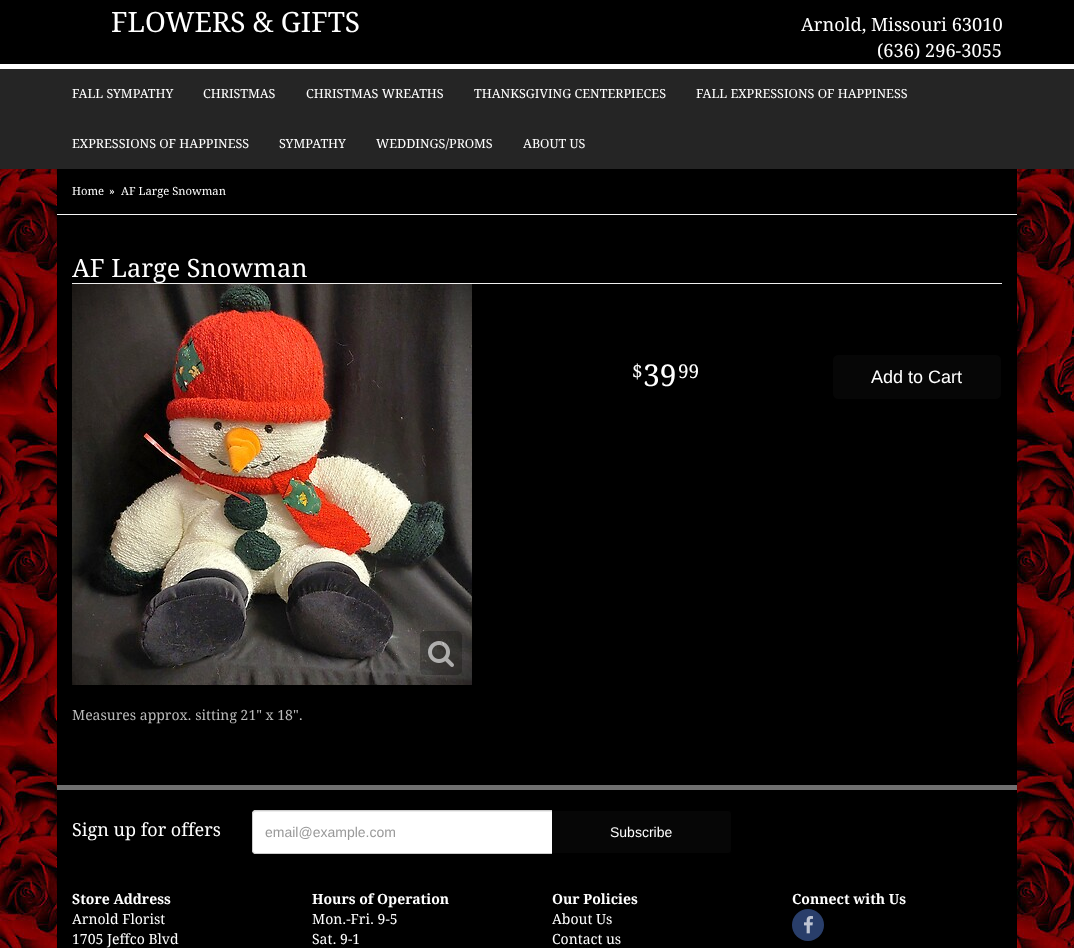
<!DOCTYPE html>
<meta charset="utf-8">
<style>body { margin: 0 } canvas { display: block }</style>
<canvas id="canvas" width="1074" height="948"></canvas>
<img id="img1" src="img_01.png" hidden>
<img id="img2" src="img_02.png" hidden>
<img id="img3" src="img_03.png" hidden>
<img id="img4" src="img_04.png" hidden>
<script>
window.onload = function () {
	const canvas = document.getElementById("canvas");
	const ctx = canvas.getContext("2d");
	ctx.miterLimit = 4;
	ctx.fontKerning = "normal";
	function txt(s, x, y) {
		ctx.fillText(s, x, y);
	}
	function fill(x, y, w, h) {
		ctx.fillRect(x, y, w, h);
	}
	function round(x, y, w, h, r) {
		ctx.beginPath();
		ctx.roundRect(x, y, w, h, r);
		ctx.fill();
	}
	function img(id, x, y, w, h) {
		ctx.drawImage(document.getElementById(id), x, y, w, h);
	}

	ctx.fillStyle = "#FFFFFF";
	fill(0, 0, 1074, 948);
	img("img1", 0, 169, 1074, 779);
	ctx.fillStyle = "#000000";
	fill(0, 0, 1074, 64);
	ctx.fillStyle = "#252525";
	fill(0, 69, 1074, 100);
	ctx.fillStyle = "#000000";
	fill(57, 169, 960, 45);
	ctx.fillStyle = "#F6F6F6";
	fill(57, 214, 960, 1);
	ctx.fillStyle = "#000000";
	fill(57, 215, 960, 570);
	ctx.fillStyle = "#EEEEEE";
	fill(72, 283, 930, 1);
	img("img2", 72, 284, 400, 401);
	ctx.fillStyle = "rgba(0, 0, 0, 0.24)";
	round(420, 631, 42, 44, 5);
	img("img3", 428, 641, 26, 26);
	ctx.fillStyle = "#060606";
	ctx.beginPath();
	ctx.roundRect(832.5, 354.5, 169, 45, 5.5);
	ctx.fill();
	ctx.strokeStyle = "#000000";
	ctx.stroke();
	ctx.fillStyle = "#000000";
	fill(57, 790, 960, 158);
	ctx.fillStyle = "#707070";
	fill(57, 785, 960, 5);
	ctx.fillStyle = "#FFFFFF";
	ctx.beginPath();
	ctx.roundRect(252, 810, 300, 44, [4, 0, 0, 4]);
	ctx.fill();
	ctx.fillStyle = "#ECECEC";
	ctx.beginPath();
	ctx.moveTo(256, 812);
	ctx.lineTo(552, 812);
	ctx.lineTo(552, 811);
	ctx.lineTo(256, 811);
	ctx.bezierCurveTo(254, 811, 253, 813, 253, 815);
	ctx.bezierCurveTo(253, 813, 254, 812, 256, 812);
	ctx.closePath();
	ctx.fill();
	ctx.fillStyle = "#CCCCCC";
	ctx.beginPath();
	ctx.moveTo(256, 810);
	ctx.lineTo(552, 810);
	ctx.lineTo(552, 854);
	ctx.lineTo(256, 854);
	ctx.bezierCurveTo(254, 854, 252, 852, 252, 850);
	ctx.lineTo(252, 814);
	ctx.bezierCurveTo(252, 812, 254, 810, 256, 810);
	ctx.closePath();
	ctx.moveTo(256, 811);
	ctx.lineTo(552, 811);
	ctx.lineTo(552, 853);
	ctx.lineTo(256, 853);
	ctx.bezierCurveTo(254, 853, 253, 852, 253, 850);
	ctx.lineTo(253, 814);
	ctx.bezierCurveTo(253, 812, 254, 811, 256, 811);
	ctx.closePath();
	ctx.fill("evenodd");
	ctx.fillStyle = "#060606";
	ctx.beginPath();
	ctx.roundRect(552, 810, 180, 44, [0, 4, 4, 0]);
	ctx.fill();
	ctx.fillStyle = "#000000";
	ctx.beginPath();
	ctx.moveTo(552, 810);
	ctx.lineTo(728, 810);
	ctx.bezierCurveTo(730, 810, 732, 812, 732, 814);
	ctx.lineTo(732, 850);
	ctx.bezierCurveTo(732, 852, 730, 854, 728, 854);
	ctx.lineTo(552, 854);
	ctx.closePath();
	ctx.moveTo(552, 811);
	ctx.lineTo(728, 811);
	ctx.bezierCurveTo(730, 811, 731, 812, 731, 814);
	ctx.lineTo(731, 850);
	ctx.bezierCurveTo(731, 852, 730, 853, 728, 853);
	ctx.lineTo(552, 853);
	ctx.closePath();
	ctx.fill("evenodd");
	ctx.fillStyle = "#293E6A";
	ctx.beginPath();
	ctx.arc(808, 925, 16, 0, Math.PI * 2);
	ctx.fill();
	img("img4", 804, 916, 9, 18);
	ctx.font = "28px Droid Serif";
	ctx.fillStyle = "#FFFFFF";
	txt("FLOWERS & GIFTS", 111, 32);
	ctx.font = "18.25px Droid Serif";
	txt("Arnold, Missouri 63010", 801, 31);
	txt("(636) 296-3055", 877, 57);
	ctx.font = "12.6px Droid Serif";
	txt("FALL SYMPATHY", 72, 98);
	txt("CHRISTMAS", 203, 98);
	txt("CHRISTMAS WREATHS", 306, 98);
	txt("THANKSGIVING CENTERPIECES", 474, 98);
	txt("FALL EXPRESSIONS OF HAPPINESS", 696, 98);
	txt("EXPRESSIONS OF HAPPINESS", 72, 148);
	txt("SYMPATHY", 279, 148);
	txt("WEDDINGS/PROMS", 376, 148);
	txt("ABOUT US", 523, 148);
	ctx.font = "11.25px Droid Serif";
	txt("Home", 72, 195);
	txt("»", 109, 195);
	txt("AF Large Snowman", 121, 195);
	ctx.font = "25.25px Droid Serif";
	txt("AF Large Snowman", 72, 277);
	ctx.font = "19px Droid Serif";
	txt("$", 632, 378);
	ctx.font = "30px Droid Serif";
	txt("39", 643, 386);
	ctx.font = "19px Droid Serif";
	txt("99", 678, 378);
	ctx.font = "18px Liberation Sans";
	txt("Add to Cart", 871, 383);
	ctx.font = "14px Droid Serif";
	ctx.fillStyle = "#BBBBBB";
	txt("Measures approx. sitting 21\" x 18\".", 72, 720);
	ctx.font = "18px Droid Serif";
	ctx.fillStyle = "#FFFFFF";
	txt("Sign up for offers", 72, 836);
	ctx.font = "14px Liberation Sans";
	ctx.fillStyle = "#999999";
	txt("email@example.com", 265, 837);
	ctx.fillStyle = "#FFFFFF";
	txt("Subscribe", 610, 837);
	ctx.font = "bold 14px Droid Serif";
	txt("Store Address", 72, 904);
	ctx.font = "14px Droid Serif";
	txt("Arnold Florist", 72, 924);
	txt("1705 Jeffco Blvd", 72, 944);
	ctx.font = "bold 14px Droid Serif";
	txt("Hours of Operation", 312, 904);
	ctx.font = "14px Droid Serif";
	txt("Mon.-Fri. 9-5", 312, 924);
	txt("Sat. 9-1", 312, 944);
	ctx.font = "bold 14px Droid Serif";
	txt("Our Policies", 552, 904);
	ctx.font = "14px Droid Serif";
	txt("About Us", 552, 924);
	txt("Contact us", 552, 944);
	ctx.font = "bold 14px Droid Serif";
	txt("Connect with Us", 792, 904);
};
</script>
